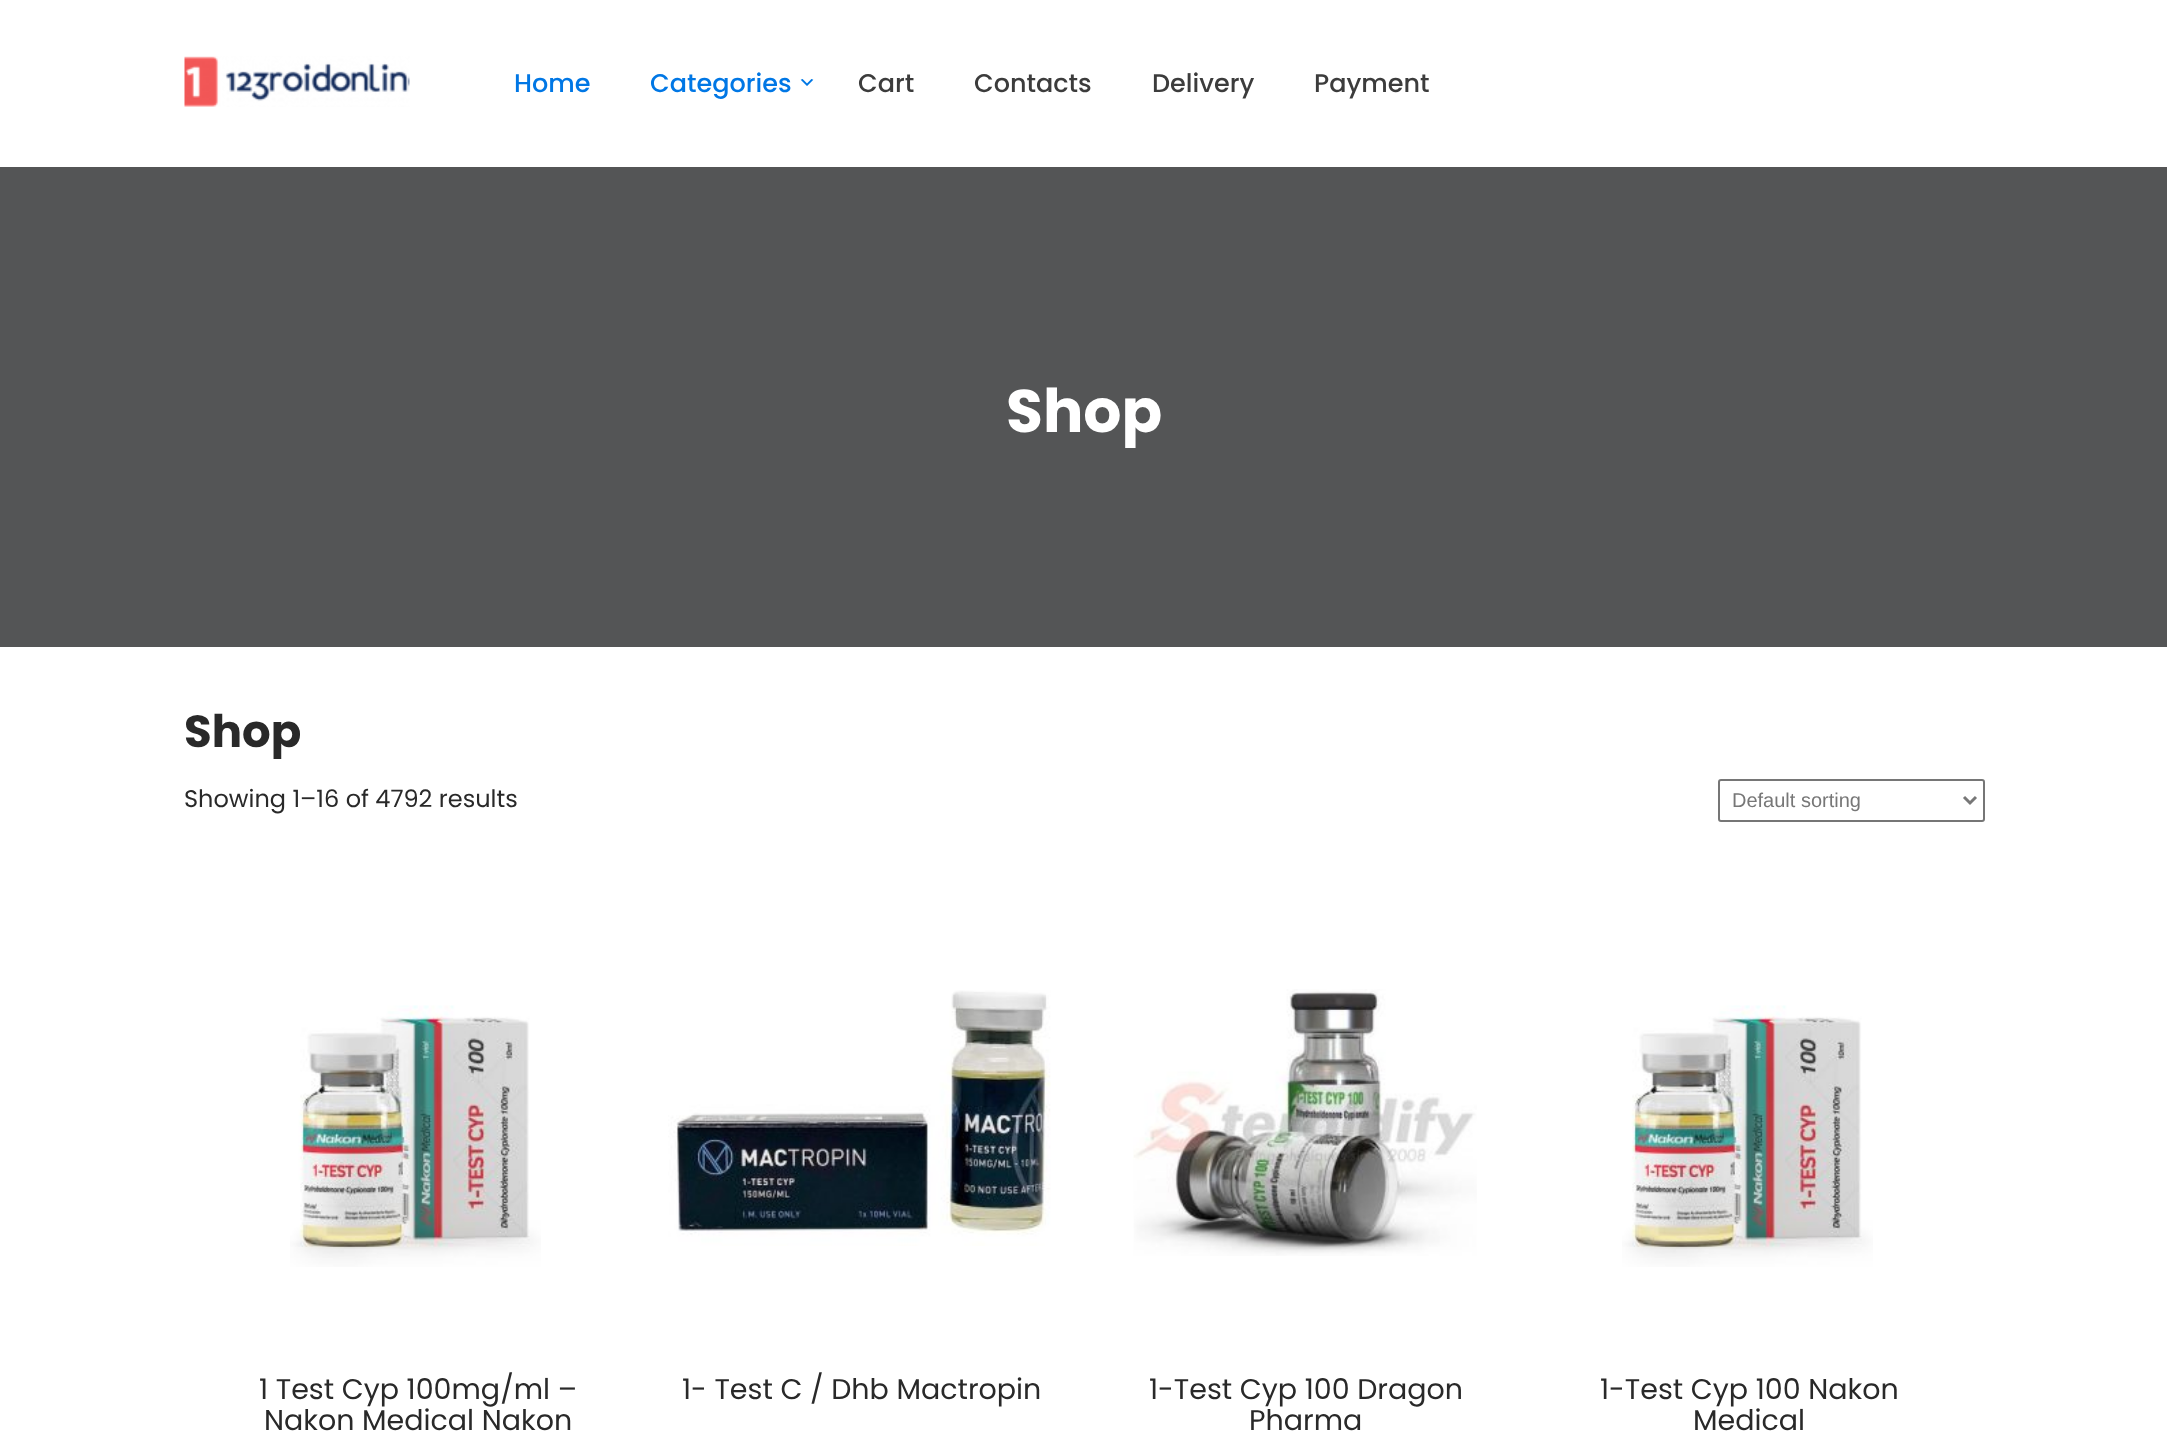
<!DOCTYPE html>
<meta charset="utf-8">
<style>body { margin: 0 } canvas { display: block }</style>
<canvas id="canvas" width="2167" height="1432"></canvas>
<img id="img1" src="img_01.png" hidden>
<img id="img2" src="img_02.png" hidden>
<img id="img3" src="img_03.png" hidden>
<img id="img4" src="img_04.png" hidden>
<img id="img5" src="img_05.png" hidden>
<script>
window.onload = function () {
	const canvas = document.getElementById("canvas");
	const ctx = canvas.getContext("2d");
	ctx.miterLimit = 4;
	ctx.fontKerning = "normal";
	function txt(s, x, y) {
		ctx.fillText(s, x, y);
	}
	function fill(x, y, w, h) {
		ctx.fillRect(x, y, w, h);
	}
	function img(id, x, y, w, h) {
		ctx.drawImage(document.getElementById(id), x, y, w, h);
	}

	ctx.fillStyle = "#FFFFFF";
	fill(0, 0, 2167, 1432);
	img("img1", 184, 56, 226, 51);
	img("img2", 800, 79, 14, 7);
	ctx.fillStyle = "#545556";
	fill(0, 167, 2167, 480);
	ctx.beginPath();
	ctx.roundRect(1719, 780, 265, 41, 2);
	ctx.strokeStyle = "#767676";
	ctx.lineWidth = 2;
	ctx.stroke();
	ctx.beginPath();
	ctx.moveTo(1964, 797);
	ctx.lineTo(1970, 803);
	ctx.lineTo(1976, 797);
	ctx.strokeStyle = "#777777";
	ctx.lineWidth = 3;
	ctx.stroke();
	img("img3", 290, 1005, 251, 262);
	img("img4", 668, 990, 383, 256);
	img("img5", 1133, 989, 344, 267);
	img("img3", 1622, 1005, 251, 262);
	ctx.font = "500 25.5px Poppins";
	ctx.fillStyle = "#0077E5";
	txt("Home", 514, 92);
	txt("Categories", 650, 92);
	ctx.fillStyle = "#3C3C3C";
	txt("Cart", 858, 92);
	txt("Contacts", 974, 92);
	txt("Delivery", 1152, 92);
	txt("Payment", 1314, 92);
	ctx.font = "bold 60px Poppins";
	ctx.fillStyle = "#FFFFFF";
	txt("Shop", 1006, 432);
	ctx.font = "bold 45px Poppins";
	ctx.fillStyle = "#292929";
	txt("Shop", 184, 747);
	ctx.font = "24px Poppins";
	txt("Showing 1–16 of 4792 results", 184, 807);
	ctx.font = "20px Liberation Sans";
	ctx.fillStyle = "#777777";
	txt("Default sorting", 1732, 807);
	ctx.font = "28.5px Poppins";
	ctx.fillStyle = "#292929";
	txt("1 Test Cyp 100mg/ml –", 259, 1399);
	txt("Nakon Medical Nakon", 264, 1430);
	txt("1- Test C / Dhb Mactropin", 682, 1399);
	txt("1-Test Cyp 100 Dragon", 1149, 1399);
	txt("Pharma", 1249, 1430);
	txt("1-Test Cyp 100 Nakon", 1600, 1399);
	txt("Medical", 1693, 1430);
};
</script>
